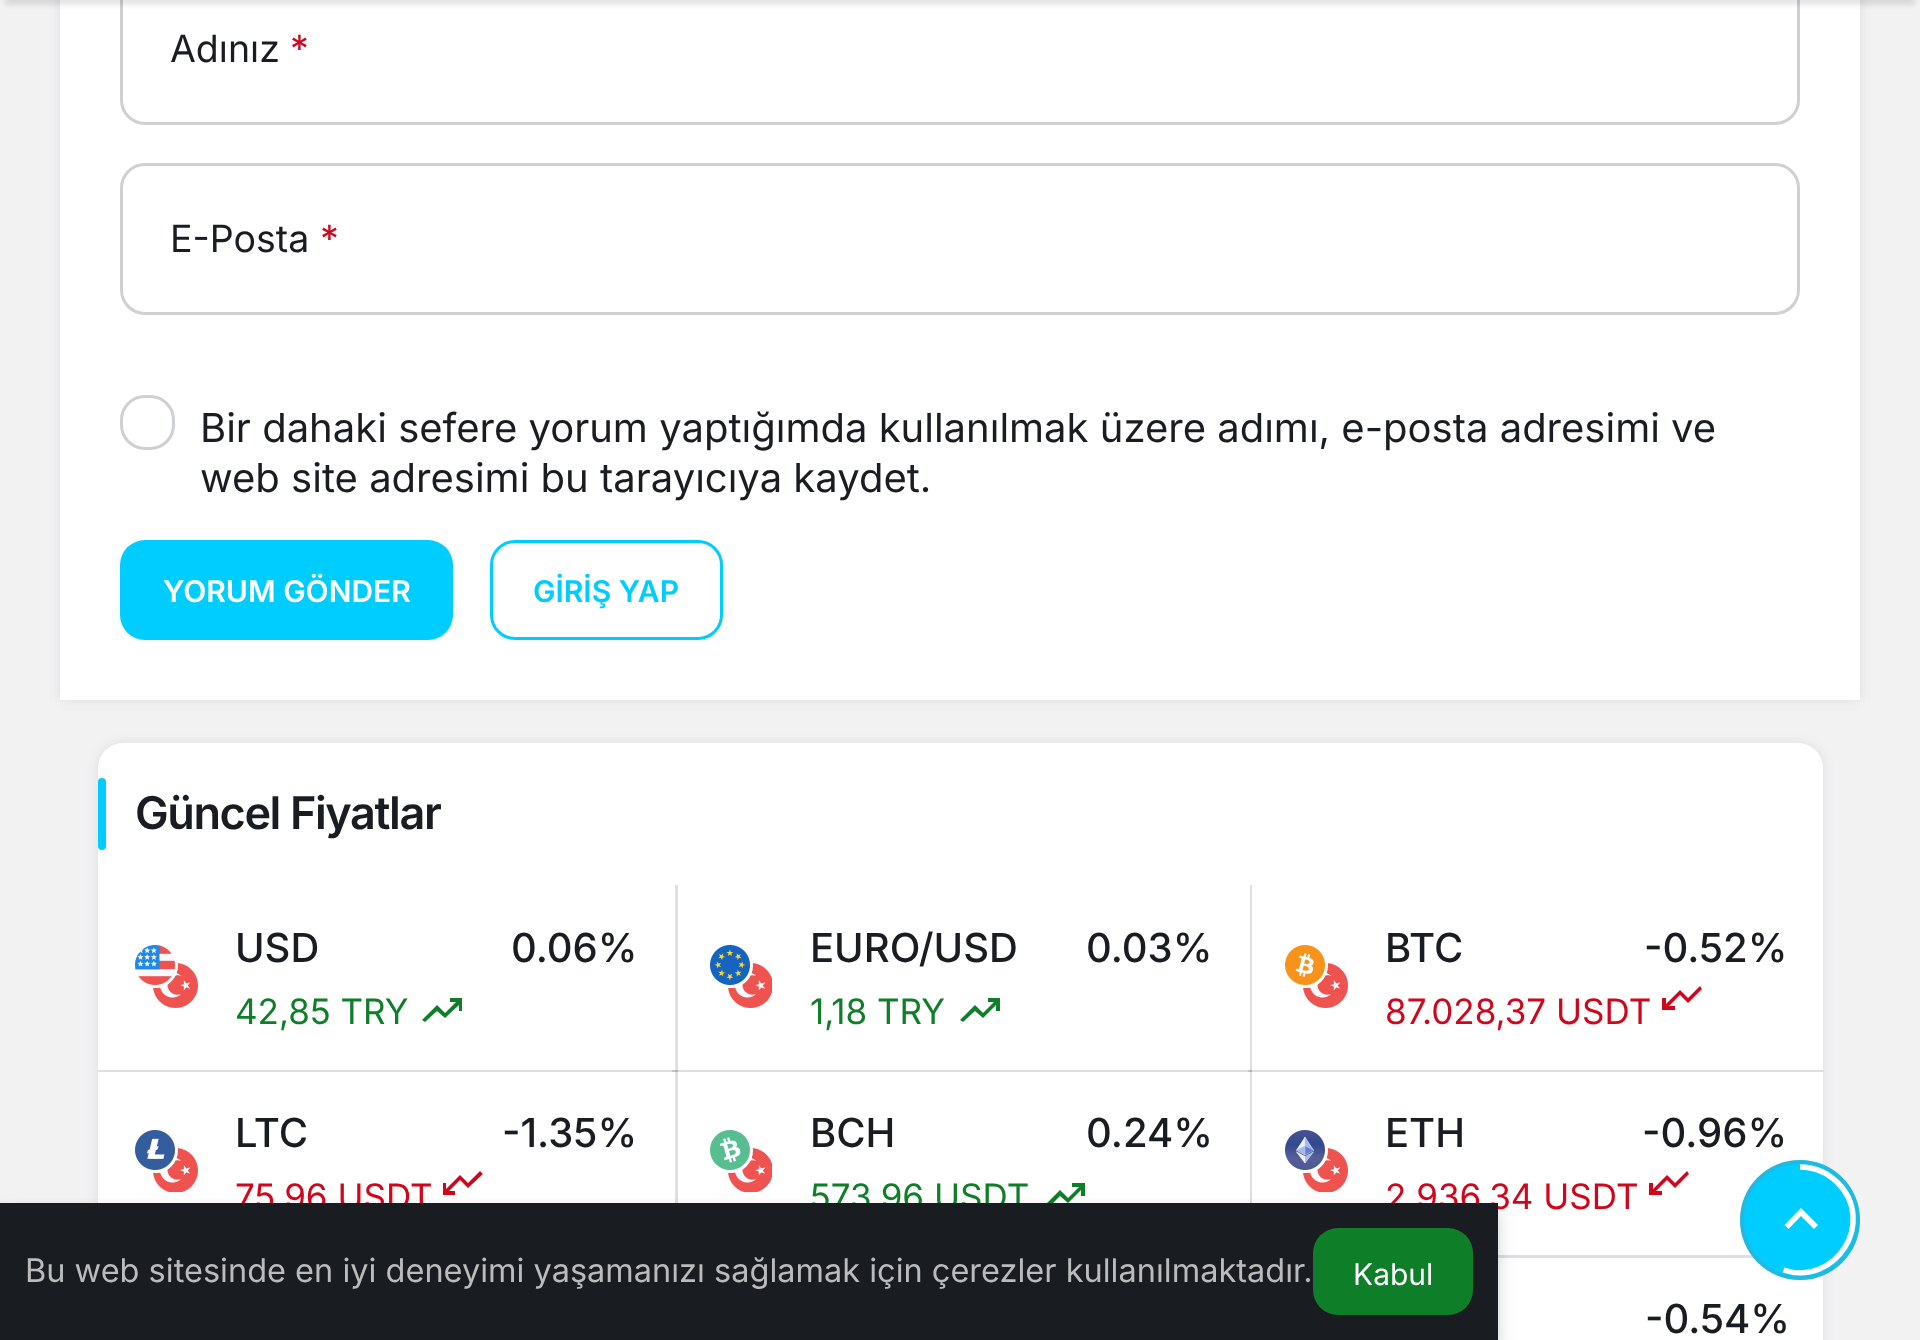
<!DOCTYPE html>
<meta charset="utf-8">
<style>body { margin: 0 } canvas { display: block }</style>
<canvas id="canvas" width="1920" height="1340"></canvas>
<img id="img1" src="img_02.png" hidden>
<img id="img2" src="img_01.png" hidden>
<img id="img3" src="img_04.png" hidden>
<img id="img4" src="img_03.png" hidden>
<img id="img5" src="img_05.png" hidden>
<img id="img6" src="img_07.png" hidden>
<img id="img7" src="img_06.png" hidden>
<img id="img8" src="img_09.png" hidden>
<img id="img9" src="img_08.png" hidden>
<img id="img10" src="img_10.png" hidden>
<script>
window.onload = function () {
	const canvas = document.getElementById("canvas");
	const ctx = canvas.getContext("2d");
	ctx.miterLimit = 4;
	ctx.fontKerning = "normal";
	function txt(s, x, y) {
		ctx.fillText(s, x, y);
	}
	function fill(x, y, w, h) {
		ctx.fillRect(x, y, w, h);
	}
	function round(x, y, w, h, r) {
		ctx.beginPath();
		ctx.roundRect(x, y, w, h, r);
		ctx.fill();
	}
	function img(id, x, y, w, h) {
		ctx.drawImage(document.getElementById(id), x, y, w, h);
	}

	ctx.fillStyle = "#F2F2F3";
	fill(0, 0, 1920, 1340);
	ctx.fillStyle = "rgba(50, 53, 61, 0.1)";
	ctx.filter = "blur(6px)";
	ctx.beginPath();
	ctx.rect(60, -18, 1800, 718);
	ctx.fill();
	ctx.filter = "none";
	ctx.fillStyle = "#FFFFFF";
	fill(60, 0, 1800, 700);
	ctx.beginPath();
	ctx.roundRect(121.5, -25.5, 1677, 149, 23.5);
	ctx.strokeStyle = "#CED0D4";
	ctx.lineWidth = 3;
	ctx.stroke();
	ctx.fillStyle = "rgba(0, 0, 0, 0.1)";
	ctx.filter = "blur(2.5px)";
	ctx.beginPath();
	ctx.rect(5, -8, 1910, 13);
	ctx.fill();
	ctx.filter = "none";
	ctx.beginPath();
	ctx.roundRect(121.5, 164.5, 1677, 149, 23.5);
	ctx.stroke();
	ctx.beginPath();
	ctx.roundRect(121.5, 396.5, 52, 52, 23.5);
	ctx.stroke();
	ctx.fillStyle = "#00CDFF";
	round(120, 540, 333, 100, 25);
	ctx.beginPath();
	ctx.roundRect(491.5, 541.5, 230, 97, 23.5);
	ctx.strokeStyle = "#00CDFF";
	ctx.stroke();
	ctx.fillStyle = "rgba(50, 53, 61, 0.1)";
	ctx.filter = "blur(6px)";
	ctx.beginPath();
	ctx.roundRect(98, 743, 1725, 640, 25);
	ctx.fill();
	ctx.filter = "none";
	ctx.fillStyle = "#FFFFFF";
	round(98, 743, 1725, 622, 25);
	ctx.fillStyle = "#00CDFF";
	round(98, 778, 8, 72, 4);
	ctx.fillStyle = "#DEDFE2";
	ctx.beginPath();
	ctx.moveTo(678, 885);
	ctx.lineTo(678, 1072);
	ctx.lineTo(675, 1070);
	ctx.lineTo(675, 885);
	ctx.closePath();
	ctx.fill();
	ctx.fillStyle = "rgba(91, 97, 110, 0.2)";
	ctx.beginPath();
	ctx.moveTo(678, 1072);
	ctx.lineTo(98, 1072);
	ctx.lineTo(98, 1070);
	ctx.lineTo(675, 1070);
	ctx.closePath();
	ctx.fill();
	img("img1", 153, 963, 45, 45);
	ctx.fillStyle = "#F0F3FA";
	ctx.beginPath();
	ctx.arc(155.5, 965.5, 21, 0, Math.PI * 2);
	ctx.fill();
	ctx.strokeStyle = "#FFFFFF";
	ctx.stroke();
	img("img2", 135, 945, 40, 40);
	ctx.fillStyle = "#0F7E29";
	ctx.beginPath();
	ctx.moveTo(425, 1022);
	ctx.lineTo(422, 1020);
	ctx.lineTo(437, 1005);
	ctx.lineTo(445, 1013);
	ctx.lineTo(456, 1002);
	ctx.lineTo(450, 1002);
	ctx.lineTo(450, 998);
	ctx.lineTo(462, 998);
	ctx.lineTo(462, 1011);
	ctx.lineTo(459, 1011);
	ctx.lineTo(459, 1005);
	ctx.lineTo(445, 1018);
	ctx.lineTo(437, 1011);
	ctx.closePath();
	ctx.fill();
	ctx.fillStyle = "#DEDFE2";
	ctx.beginPath();
	ctx.moveTo(1252, 885);
	ctx.lineTo(1252, 1072);
	ctx.lineTo(1250, 1070);
	ctx.lineTo(1250, 885);
	ctx.closePath();
	ctx.fill();
	ctx.fillStyle = "rgba(91, 97, 110, 0.2)";
	ctx.beginPath();
	ctx.moveTo(1252, 1072);
	ctx.lineTo(672, 1072);
	ctx.lineTo(672, 1070);
	ctx.lineTo(1250, 1070);
	ctx.closePath();
	ctx.fill();
	ctx.fillStyle = "#F0F3FA";
	ctx.beginPath();
	ctx.arc(750.5, 985.5, 22.5, 0, Math.PI * 2);
	ctx.fill();
	img("img3", 728, 963, 44, 45);
	ctx.beginPath();
	ctx.arc(730.5, 965.5, 21, 0, Math.PI * 2);
	ctx.fill();
	ctx.stroke();
	img("img4", 710, 945, 40, 40);
	ctx.fillStyle = "#0F7E29";
	ctx.beginPath();
	ctx.moveTo(963, 1022);
	ctx.lineTo(960, 1020);
	ctx.lineTo(975, 1005);
	ctx.lineTo(983, 1013);
	ctx.lineTo(994, 1002);
	ctx.lineTo(988, 1002);
	ctx.lineTo(988, 998);
	ctx.lineTo(1000, 998);
	ctx.lineTo(1000, 1011);
	ctx.lineTo(996, 1011);
	ctx.lineTo(996, 1005);
	ctx.lineTo(983, 1018);
	ctx.lineTo(975, 1011);
	ctx.closePath();
	ctx.fill();
	ctx.fillStyle = "rgba(91, 97, 110, 0.2)";
	fill(1248, 1070, 575, 2);
	img("img1", 1303, 963, 45, 45);
	ctx.fillStyle = "#F0F3FA";
	ctx.beginPath();
	ctx.arc(1305.5, 965.5, 21, 0, Math.PI * 2);
	ctx.fill();
	ctx.stroke();
	img("img5", 1285, 945, 40, 40);
	ctx.fillStyle = "#CF061C";
	ctx.beginPath();
	ctx.moveTo(1700, 986);
	ctx.lineTo(1702, 989);
	ctx.lineTo(1688, 1003);
	ctx.lineTo(1680, 995);
	ctx.lineTo(1669, 1006);
	ctx.lineTo(1675, 1006);
	ctx.lineTo(1675, 1010);
	ctx.lineTo(1662, 1010);
	ctx.lineTo(1662, 998);
	ctx.lineTo(1666, 998);
	ctx.lineTo(1666, 1004);
	ctx.lineTo(1680, 990);
	ctx.lineTo(1688, 998);
	ctx.closePath();
	ctx.fill();
	ctx.fillStyle = "rgba(91, 97, 110, 0.2)";
	ctx.beginPath();
	ctx.moveTo(678, 1070);
	ctx.lineTo(678, 1258);
	ctx.lineTo(675, 1255);
	ctx.lineTo(675, 1070);
	ctx.closePath();
	ctx.fill();
	ctx.fillStyle = "#F0F3FA";
	ctx.beginPath();
	ctx.arc(175.5, 1170.5, 22.5, 0, Math.PI * 2);
	ctx.fill();
	img("img6", 153, 1148, 45, 44);
	ctx.beginPath();
	ctx.arc(155.5, 1150.5, 21, 0, Math.PI * 2);
	ctx.fill();
	ctx.stroke();
	img("img7", 135, 1130, 40, 40);
	ctx.fillStyle = "#CF061C";
	ctx.beginPath();
	ctx.moveTo(480, 1171);
	ctx.lineTo(483, 1174);
	ctx.lineTo(468, 1188);
	ctx.lineTo(460, 1180);
	ctx.lineTo(449, 1191);
	ctx.lineTo(455, 1191);
	ctx.lineTo(455, 1195);
	ctx.lineTo(443, 1195);
	ctx.lineTo(443, 1183);
	ctx.lineTo(446, 1183);
	ctx.lineTo(446, 1189);
	ctx.lineTo(460, 1175);
	ctx.lineTo(468, 1183);
	ctx.closePath();
	ctx.fill();
	ctx.fillStyle = "rgba(91, 97, 110, 0.2)";
	ctx.beginPath();
	ctx.moveTo(1252, 1070);
	ctx.lineTo(1252, 1258);
	ctx.lineTo(1250, 1255);
	ctx.lineTo(1250, 1070);
	ctx.closePath();
	ctx.fill();
	ctx.fillStyle = "#F0F3FA";
	ctx.beginPath();
	ctx.arc(750.5, 1170.5, 22.5, 0, Math.PI * 2);
	ctx.fill();
	img("img8", 728, 1148, 44, 44);
	ctx.beginPath();
	ctx.arc(730.5, 1150.5, 21, 0, Math.PI * 2);
	ctx.fill();
	ctx.stroke();
	img("img9", 710, 1130, 40, 40);
	ctx.fillStyle = "#0F7E29";
	ctx.beginPath();
	ctx.moveTo(1048, 1208);
	ctx.lineTo(1045, 1205);
	ctx.lineTo(1060, 1190);
	ctx.lineTo(1068, 1198);
	ctx.lineTo(1079, 1187);
	ctx.lineTo(1072, 1187);
	ctx.lineTo(1072, 1183);
	ctx.lineTo(1085, 1183);
	ctx.lineTo(1085, 1196);
	ctx.lineTo(1081, 1196);
	ctx.lineTo(1081, 1190);
	ctx.lineTo(1068, 1203);
	ctx.lineTo(1060, 1196);
	ctx.closePath();
	ctx.fill();
	ctx.fillStyle = "rgba(91, 97, 110, 0.2)";
	fill(1498, 1255, 256, 3);
	ctx.fillStyle = "#F0F3FA";
	ctx.beginPath();
	ctx.arc(1325.5, 1170.5, 22.5, 0, Math.PI * 2);
	ctx.fill();
	img("img6", 1303, 1148, 45, 44);
	ctx.beginPath();
	ctx.arc(1305.5, 1150.5, 21, 0, Math.PI * 2);
	ctx.fill();
	ctx.stroke();
	img("img10", 1285, 1130, 40, 40);
	ctx.fillStyle = "#CF061C";
	ctx.beginPath();
	ctx.moveTo(1687, 1171);
	ctx.lineTo(1689, 1174);
	ctx.lineTo(1675, 1188);
	ctx.lineTo(1667, 1180);
	ctx.lineTo(1656, 1191);
	ctx.lineTo(1662, 1191);
	ctx.lineTo(1662, 1195);
	ctx.lineTo(1649, 1195);
	ctx.lineTo(1649, 1183);
	ctx.lineTo(1653, 1183);
	ctx.lineTo(1653, 1189);
	ctx.lineTo(1667, 1175);
	ctx.lineTo(1675, 1183);
	ctx.closePath();
	ctx.fill();
	ctx.fillStyle = "#00CDFF";
	ctx.beginPath();
	ctx.arc(1800, 1220, 60, 0, Math.PI * 2);
	ctx.fill();
	ctx.beginPath();
	ctx.arc(1800, 1220, 58, 0, Math.PI * 2);
	ctx.strokeStyle = "rgba(128, 130, 134, 0.25)";
	ctx.lineWidth = 4;
	ctx.stroke();
	ctx.beginPath();
	ctx.moveTo(1800, 1167);
	ctx.bezierCurveTo(1814, 1167, 1827.5, 1173, 1837.5, 1182.5);
	ctx.bezierCurveTo(1877, 1222, 1835.5, 1287, 1783.5, 1270);
	ctx.strokeStyle = "#FFFFFF";
	ctx.lineWidth = 5.4;
	ctx.stroke();
	ctx.fillStyle = "#FFFFFF";
	ctx.beginPath();
	ctx.moveTo(1788.5, 1229);
	ctx.lineTo(1784.5, 1225);
	ctx.lineTo(1801, 1208);
	ctx.lineTo(1818, 1225);
	ctx.lineTo(1814, 1229);
	ctx.lineTo(1801, 1216);
	ctx.closePath();
	ctx.fill();
	ctx.fillStyle = "rgba(0, 0, 0, 0.08)";
	ctx.filter = "blur(5px)";
	ctx.beginPath();
	ctx.rect(0, 1208, 1498, 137);
	ctx.fill();
	ctx.filter = "none";
	ctx.fillStyle = "rgba(0, 0, 0, 0.12)";
	ctx.filter = "blur(10px)";
	ctx.beginPath();
	ctx.rect(0, 1213, 1498, 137);
	ctx.fill();
	ctx.filter = "none";
	ctx.font = "37.5px Inter";
	ctx.fillStyle = "#191C20";
	txt("Adınız", 170, 62);
	ctx.fillStyle = "#CF061C";
	txt("*", 290, 62);
	ctx.fillStyle = "#191C20";
	txt("E-Posta", 170, 252);
	ctx.fillStyle = "#CF061C";
	txt("*", 320, 252);
	ctx.font = "40px Inter";
	ctx.fillStyle = "#191C20";
	txt("Bir dahaki sefere yorum yaptığımda kullanılmak üzere adımı, e-posta adresimi ve", 200, 442);
	txt("web site adresimi bu tarayıcıya kaydet.", 200, 492);
	ctx.font = "600 30px Inter";
	ctx.fillStyle = "#FFFFFF";
	txt("YORUM GÖNDER", 163, 602);
	ctx.fillStyle = "#00CDFF";
	txt("GİRİŞ YAP", 533, 602);
	ctx.letterSpacing = "-1.4px";
	ctx.font = "600 45px Inter";
	ctx.fillStyle = "#191C20";
	txt("Güncel Fiyatlar", 135, 829);
	ctx.letterSpacing = "0px";
	ctx.font = "500 40px Inter";
	txt("USD", 235, 962);
	txt("0.06%", 511, 962);
	ctx.font = "35px Inter";
	ctx.fillStyle = "#0F7E29";
	txt("42,85 TRY", 235, 1024);
	ctx.font = "500 40px Inter";
	ctx.fillStyle = "#191C20";
	txt("EURO/USD", 810, 962);
	txt("0.03%", 1086, 962);
	ctx.font = "35px Inter";
	ctx.fillStyle = "#0F7E29";
	txt("1,18 TRY", 810, 1024);
	ctx.font = "500 40px Inter";
	ctx.fillStyle = "#191C20";
	txt("BTC", 1385, 962);
	txt("-0.52%", 1644, 962);
	ctx.font = "35px Inter";
	ctx.fillStyle = "#CF061C";
	txt("87.028,37 USDT", 1385, 1024);
	ctx.font = "500 40px Inter";
	ctx.fillStyle = "#191C20";
	txt("LTC", 235, 1147);
	txt("-1.35%", 502, 1147);
	ctx.font = "35px Inter";
	ctx.fillStyle = "#CF061C";
	txt("75,96 USDT", 235, 1209);
	ctx.font = "500 40px Inter";
	ctx.fillStyle = "#191C20";
	txt("BCH", 810, 1147);
	txt("0.24%", 1086, 1147);
	ctx.font = "35px Inter";
	ctx.fillStyle = "#0F7E29";
	txt("573,96 USDT", 810, 1209);
	ctx.font = "500 40px Inter";
	ctx.fillStyle = "#191C20";
	txt("ETH", 1385, 1147);
	txt("-0.96%", 1642, 1147);
	ctx.font = "35px Inter";
	ctx.fillStyle = "#CF061C";
	txt("2.936,34 USDT", 1385, 1209);
	ctx.font = "500 40px Inter";
	ctx.fillStyle = "#191C20";
	txt("-0.54%", 1645, 1333);
	fill(0, 1203, 1498, 137);
	ctx.font = "32.5px Inter";
	ctx.fillStyle = "#BABBBC";
	txt("Bu web sitesinde en iyi deneyimi yaşamanızı sağlamak için çerezler kullanılmaktadır.", 25, 1282);
	ctx.fillStyle = "#0F7E29";
	round(1313, 1228, 160, 87, 25);
	ctx.font = "30px Inter";
	ctx.fillStyle = "#FFFFFF";
	txt("Kabul", 1353, 1285);
};
</script>
